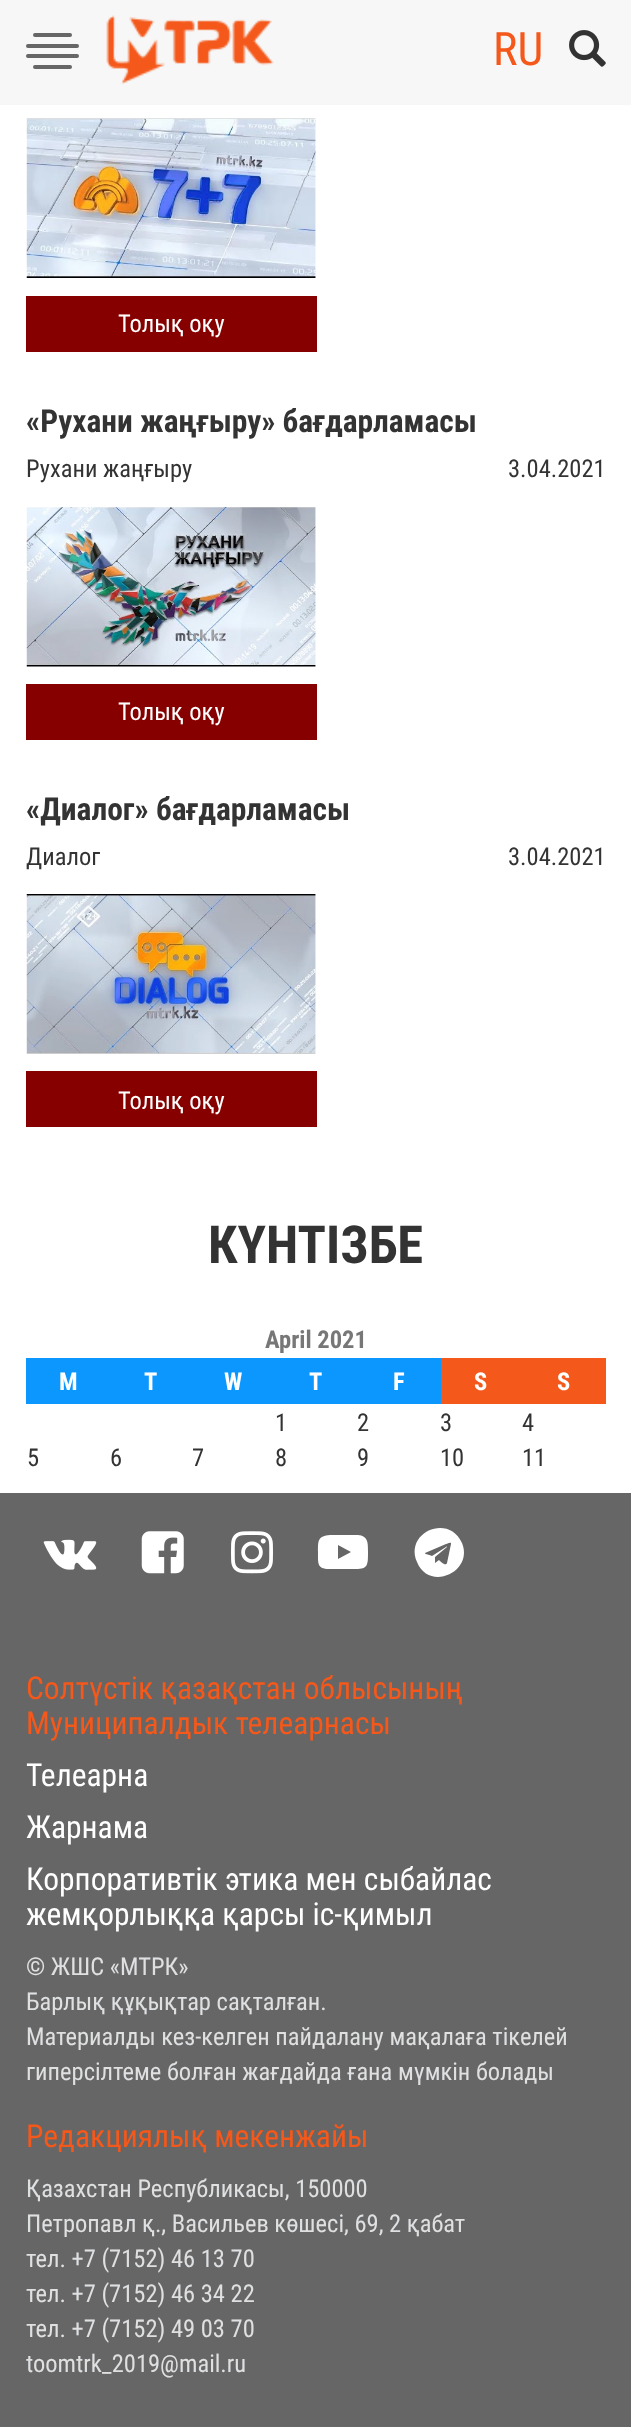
<!DOCTYPE html>
<meta charset="utf-8">
<style>body { margin: 0 } canvas { display: block }</style>
<canvas id="canvas" width="631" height="2427"></canvas>
<img id="img1" src="img_01.png" hidden>
<img id="img2" src="img_02.png" hidden>
<img id="img3" src="img_03.png" hidden>
<img id="img4" src="img_04.png" hidden>
<img id="img5" src="img_05.png" hidden>
<img id="img6" src="img_06.png" hidden>
<img id="img7" src="img_07.png" hidden>
<img id="img8" src="img_08.png" hidden>
<script>
window.onload = function () {
	const canvas = document.getElementById("canvas");
	const ctx = canvas.getContext("2d");
	ctx.miterLimit = 4;
	ctx.fontKerning = "normal";
	function txt(s, x, y) {
		ctx.fillText(s, x, y);
	}
	function fill(x, y, w, h) {
		ctx.fillRect(x, y, w, h);
	}
	function round(x, y, w, h, r) {
		ctx.beginPath();
		ctx.roundRect(x, y, w, h, r);
		ctx.fill();
	}
	function img(id, x, y, w, h) {
		ctx.drawImage(document.getElementById(id), x, y, w, h);
	}

	ctx.fillStyle = "#FFFFFF";
	fill(0, 0, 631, 2427);
	ctx.fillStyle = "#F7F7F7";
	fill(0, 0, 631, 105);
	ctx.fillStyle = "#666666";
	round(33, 33, 39, 4, 2);
	round(26, 44, 53, 4, 2);
	round(26, 54, 53, 4, 2);
	round(33, 65, 39, 4, 2);
	img("img1", 106, 15, 168, 69);
	img("img2", 569, 30, 37, 37);
	img("img3", 26, 118, 290, 160);
	ctx.fillStyle = "#860000";
	fill(26, 296, 291, 56);
	img("img4", 26, 507, 290, 160);
	fill(26, 684, 291, 56);
	img("img5", 26, 894, 290, 160);
	fill(26, 1071, 291, 56);
	ctx.fillStyle = "#0C97FF";
	fill(28, 1360, 82, 42);
	fill(26, 1402, 84, 2);
	ctx.fillStyle = "#F4581A";
	fill(439, 1358, 167, 2);
	ctx.fillStyle = "#0C97FF";
	fill(26, 1358, 415, 2);
	fill(26, 1358, 2, 46);
	fill(110, 1360, 329, 44);
	fill(439, 1358, 2, 46);
	ctx.fillStyle = "#F4581A";
	fill(441, 1360, 165, 44);
	ctx.fillStyle = "#666666";
	fill(0, 1493, 631, 934);
	img("img6", 43, 1539, 54, 31);
	img("img7", 141, 1531, 43, 43);
	img("img8", 231, 1531, 42, 43);
	ctx.fillStyle = "#FFFFFF";
	ctx.beginPath();
	ctx.moveTo(338, 1559);
	ctx.lineTo(351, 1552);
	ctx.lineTo(338, 1545);
	ctx.closePath();
	ctx.moveTo(343, 1535);
	ctx.lineTo(358, 1535);
	ctx.bezierCurveTo(368, 1536, 368, 1542, 368, 1552);
	ctx.bezierCurveTo(368, 1565, 368, 1569, 356, 1569);
	ctx.lineTo(329, 1569);
	ctx.bezierCurveTo(317, 1569, 318, 1563, 318, 1552);
	ctx.bezierCurveTo(318, 1540, 318, 1536, 330, 1535);
	ctx.closePath();
	ctx.fill();
	ctx.beginPath();
	ctx.moveTo(447, 1563);
	ctx.lineTo(451, 1544);
	ctx.bezierCurveTo(452, 1541, 446, 1544, 446, 1544);
	ctx.lineTo(425, 1553);
	ctx.bezierCurveTo(424, 1554, 431, 1555, 432, 1556);
	ctx.lineTo(446, 1547);
	ctx.bezierCurveTo(446, 1547, 447, 1546, 447, 1547);
	ctx.lineTo(435, 1557);
	ctx.lineTo(435, 1563);
	ctx.lineTo(439, 1560);
	ctx.bezierCurveTo(440, 1561, 446, 1567, 447, 1563);
	ctx.closePath();
	ctx.moveTo(462, 1543);
	ctx.bezierCurveTo(474, 1572, 429, 1592, 417, 1562);
	ctx.bezierCurveTo(404, 1532, 449, 1513, 462, 1543);
	ctx.closePath();
	ctx.fill();
	ctx.font = "46px Roboto Condensed";
	ctx.fillStyle = "#F4581A";
	txt("RU", 493, 65);
	ctx.font = "24.5px Roboto Condensed";
	ctx.fillStyle = "#FFFFFF";
	txt("Толық оқу", 118, 332);
	ctx.font = "bold 31.5px Roboto Condensed";
	ctx.fillStyle = "#333333";
	txt("«Рухани жаңғыру» бағдарламасы", 26, 432);
	ctx.font = "24.5px Roboto Condensed";
	txt("Рухани жаңғыру", 26, 477);
	txt("3.04.2021", 508, 477);
	ctx.fillStyle = "#FFFFFF";
	txt("Толық оқу", 118, 720);
	ctx.font = "bold 31.5px Roboto Condensed";
	ctx.fillStyle = "#333333";
	txt("«Диалог» бағдарламасы", 26, 820);
	ctx.font = "24.5px Roboto Condensed";
	txt("Диалог", 26, 865);
	txt("3.04.2021", 508, 865);
	ctx.fillStyle = "#FFFFFF";
	txt("Толық оқу", 118, 1109);
	ctx.font = "bold 52.5px Roboto Condensed";
	ctx.fillStyle = "#333333";
	txt("КҮНТІЗБЕ", 208, 1263);
	ctx.font = "bold 24.5px Roboto Condensed";
	ctx.fillStyle = "#777777";
	txt("April 2021", 265, 1348);
	ctx.fillStyle = "#FFFFFF";
	txt("M", 59, 1390);
	txt("T", 144, 1390);
	txt("W", 224, 1390);
	txt("T", 309, 1390);
	txt("F", 393, 1390);
	txt("S", 474, 1390);
	txt("S", 557, 1390);
	ctx.font = "24.5px Roboto Condensed";
	ctx.fillStyle = "#333333";
	txt("1", 275, 1431);
	txt("2", 357, 1431);
	txt("3", 440, 1431);
	txt("4", 522, 1431);
	txt("5", 27, 1466);
	txt("6", 110, 1466);
	txt("7", 192, 1466);
	txt("8", 275, 1466);
	txt("9", 357, 1466);
	txt("10", 440, 1466);
	txt("11", 522, 1466);
	ctx.font = "31.5px Roboto Condensed";
	ctx.fillStyle = "#F4581A";
	txt("Солтүстік қазақстан облысының", 26, 1699);
	txt("Муниципалдык телеарнасы", 26, 1734);
	ctx.fillStyle = "#FFFFFF";
	txt("Телеарна", 26, 1786);
	txt("Жарнама", 26, 1838);
	txt("Корпоративтік этика мен сыбайлас", 26, 1890);
	txt("жемқорлыққа қарсы іс-қимыл", 26, 1925);
	ctx.font = "24.5px Roboto Condensed";
	ctx.fillStyle = "#DFE0E2";
	txt("© ЖШС «МТРК»", 26, 1975);
	txt("Барлық құқықтар сақталған.", 26, 2010);
	txt("Материалды кез-келген пайдалану мақалаға тікелей", 26, 2045);
	txt("гиперсілтеме болған жағдайда ғана мүмкін болады", 26, 2080);
	ctx.font = "31.5px Roboto Condensed";
	ctx.fillStyle = "#F4581A";
	txt("Редакциялық мекенжайы", 26, 2147);
	ctx.font = "24.5px Roboto Condensed";
	ctx.fillStyle = "#DFE0E2";
	txt("Қазахстан Республикасы, 150000", 26, 2197);
	txt("Петропавл қ., Васильев көшесі, 69, 2 қабат", 26, 2232);
	txt("тел. +7 (7152) 46 13 70", 26, 2267);
	txt("тел. +7 (7152) 46 34 22", 26, 2302);
	txt("тел. +7 (7152) 49 03 70", 26, 2337);
	txt("toomtrk_2019@mail.ru", 26, 2372);
};
</script>
